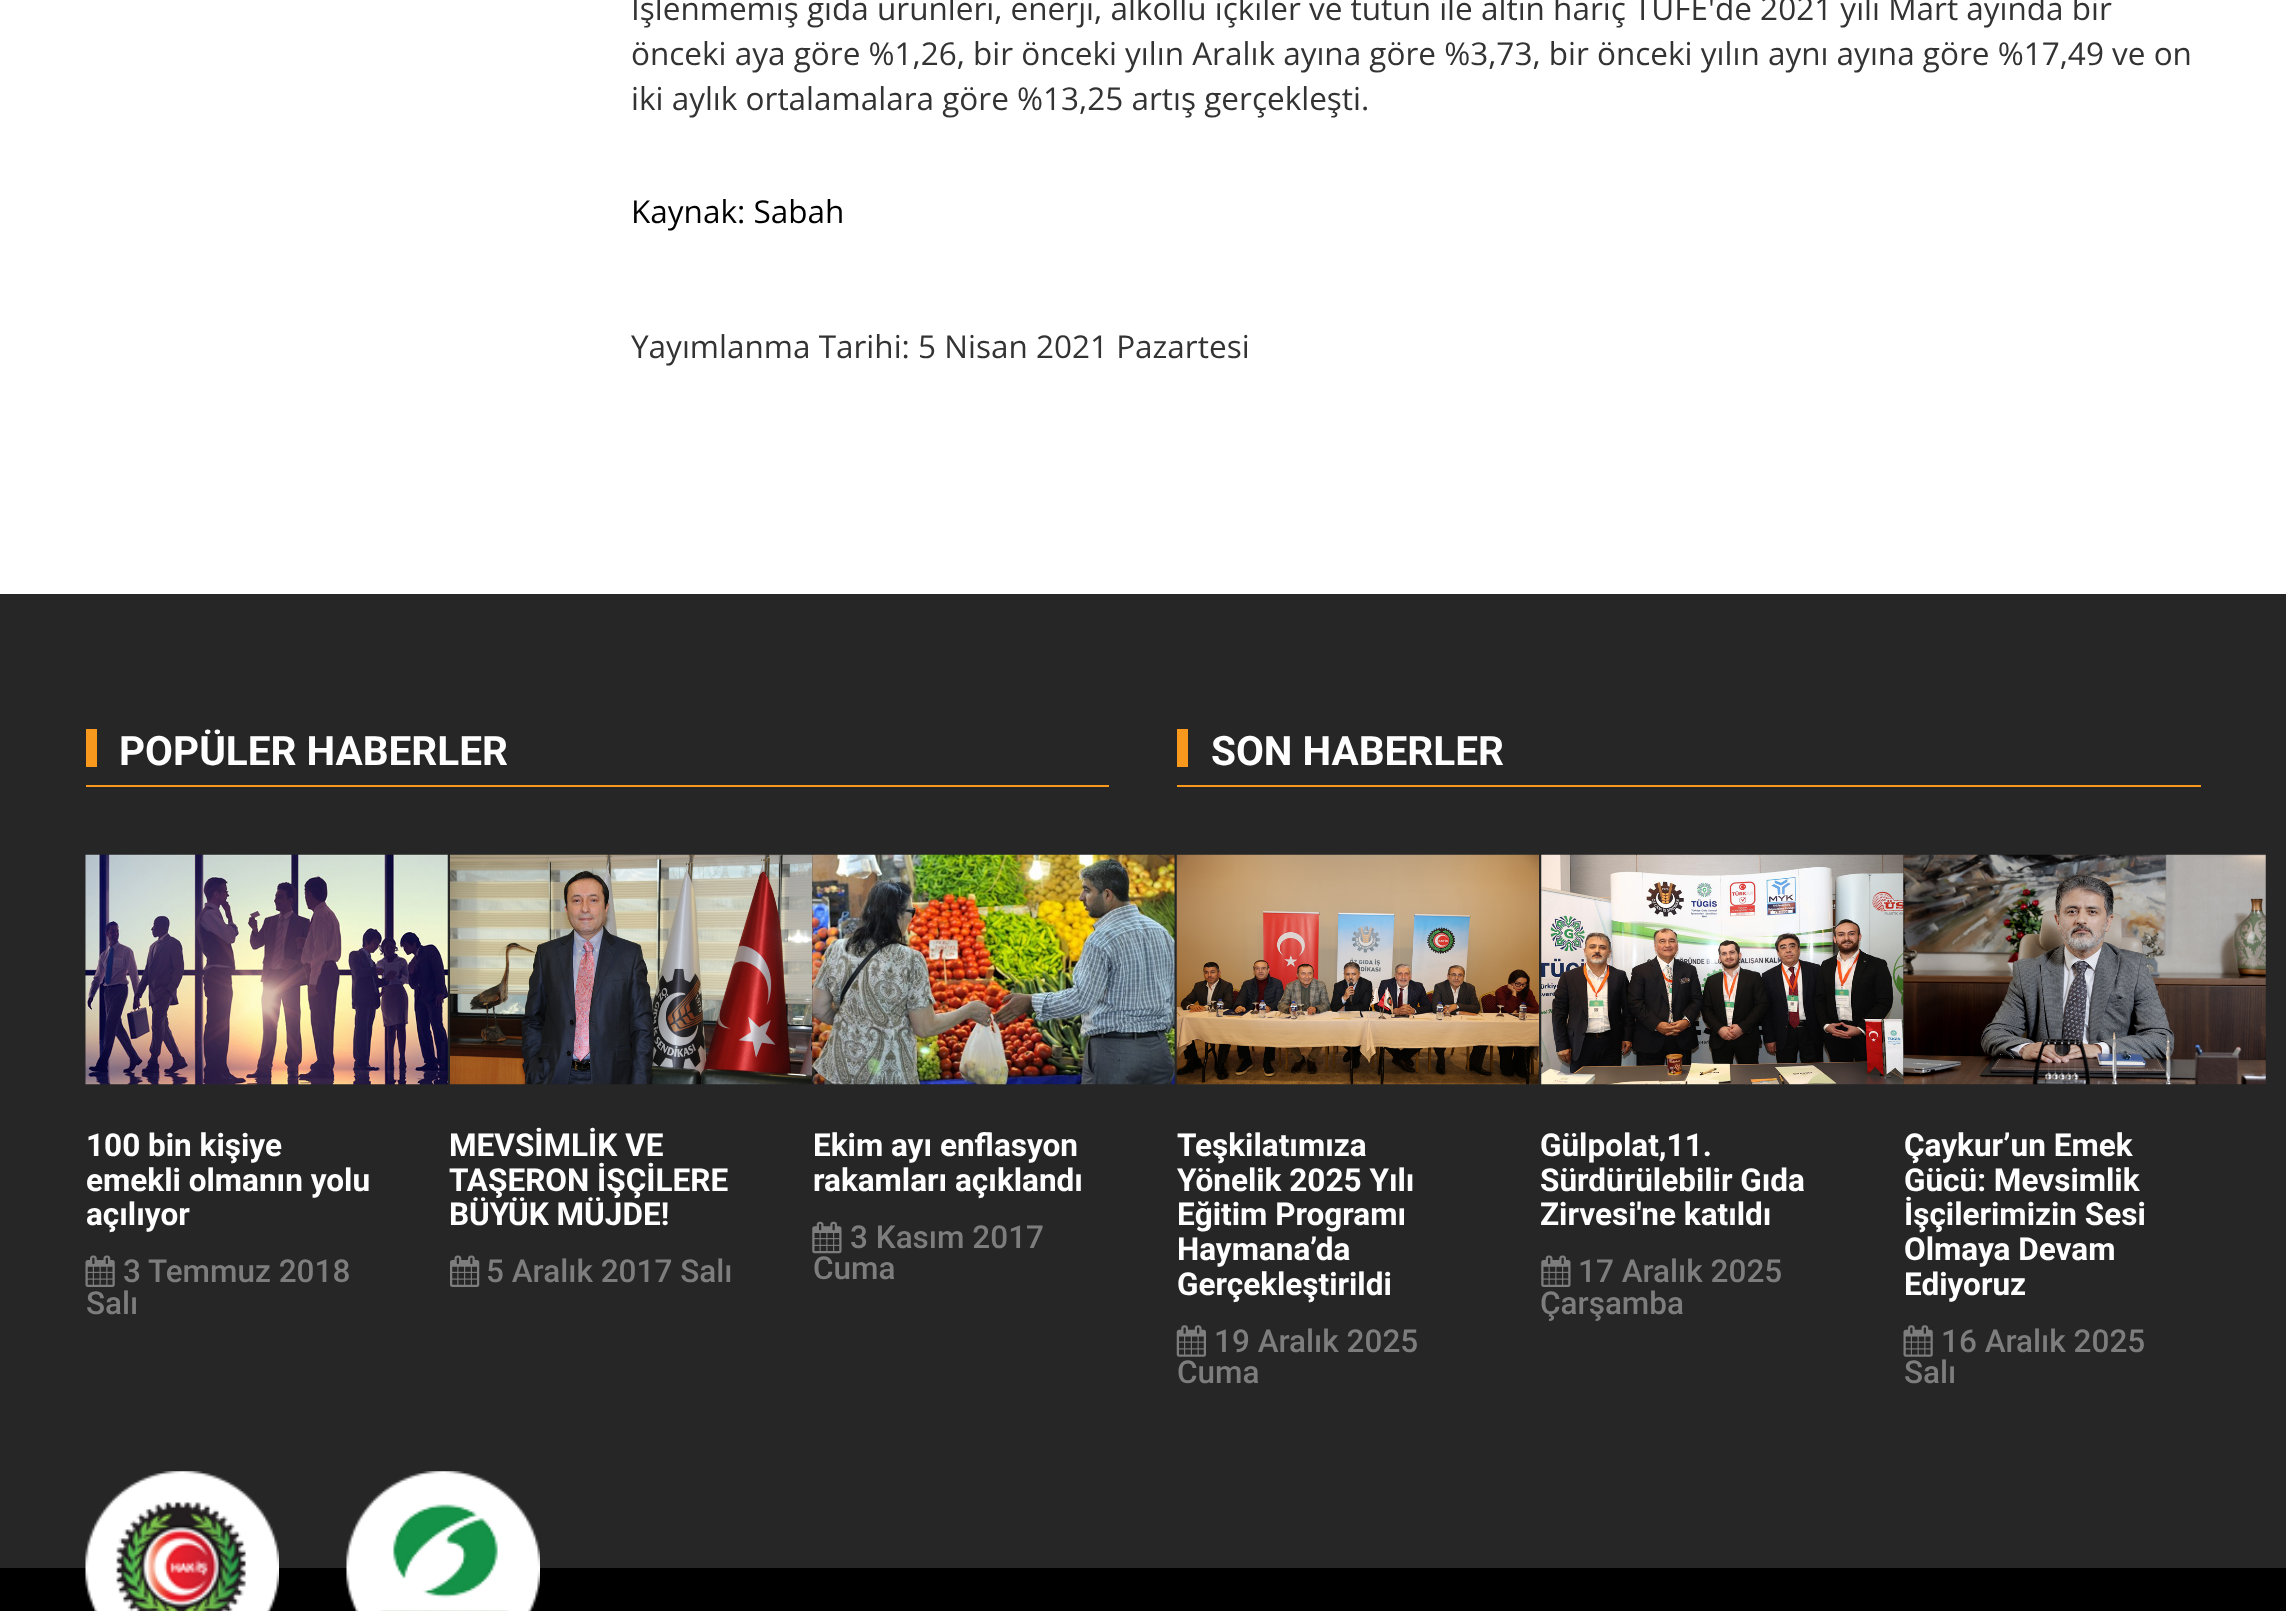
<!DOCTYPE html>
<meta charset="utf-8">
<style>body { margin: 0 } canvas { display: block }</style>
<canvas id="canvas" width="2286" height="1611"></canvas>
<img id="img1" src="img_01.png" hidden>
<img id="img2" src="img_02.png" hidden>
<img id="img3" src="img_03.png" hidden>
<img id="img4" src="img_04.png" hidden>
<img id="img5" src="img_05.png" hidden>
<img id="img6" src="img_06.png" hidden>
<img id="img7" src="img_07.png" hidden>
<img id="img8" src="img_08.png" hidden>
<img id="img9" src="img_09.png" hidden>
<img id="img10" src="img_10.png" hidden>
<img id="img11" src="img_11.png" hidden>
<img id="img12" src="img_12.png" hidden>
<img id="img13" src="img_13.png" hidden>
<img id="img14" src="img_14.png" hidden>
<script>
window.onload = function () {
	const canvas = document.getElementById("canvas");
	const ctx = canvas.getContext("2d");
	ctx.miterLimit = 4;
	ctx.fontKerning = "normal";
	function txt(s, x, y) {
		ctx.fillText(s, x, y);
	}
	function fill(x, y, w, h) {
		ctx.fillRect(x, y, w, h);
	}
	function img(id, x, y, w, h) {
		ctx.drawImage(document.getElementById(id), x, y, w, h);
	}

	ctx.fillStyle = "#FFFFFF";
	fill(0, 0, 2286, 1611);
	ctx.fillStyle = "#262626";
	fill(0, 594, 2286, 974);
	ctx.fillStyle = "#F8991D";
	fill(86, 785, 1023, 2);
	fill(86, 729, 11, 38);
	img("img1", 85, 854, 363, 231);
	img("img2", 85, 1255, 30, 32);
	img("img3", 450, 854, 363, 231);
	img("img4", 450, 1255, 30, 32);
	img("img5", 812, 854, 363, 231);
	img("img6", 812, 1221, 30, 33);
	fill(1177, 785, 1024, 2);
	fill(1177, 729, 11, 38);
	img("img7", 1176, 854, 363, 231);
	img("img8", 1176, 1325, 30, 32);
	img("img9", 1541, 854, 363, 231);
	img("img10", 1541, 1255, 30, 32);
	img("img11", 1903, 854, 363, 231);
	img("img12", 1903, 1325, 30, 32);
	ctx.fillStyle = "#000000";
	fill(0, 1568, 2286, 43);
	img("img13", 85, 1471, 194, 140);
	img("img14", 346, 1471, 194, 140);
	ctx.font = "31.5px Open Sans";
	ctx.fillStyle = "#333333";
	txt("İşlenmemiş gıda ürünleri, enerji, alkollü içkiler ve tütün ile altın hariç TÜFE'de 2021 yılı Mart ayında bir", 631, 20);
	txt("önceki aya göre %1,26, bir önceki yılın Aralık ayına göre %3,73, bir önceki yılın aynı ayına göre %17,49 ve on", 631, 65);
	txt("iki aylık ortalamalara göre %13,25 artış gerçekleşti.", 631, 110);
	ctx.fillStyle = "#000000";
	txt("Kaynak: Sabah", 631, 223);
	ctx.fillStyle = "#333333";
	txt("Yayımlanma Tarihi: 5 Nisan 2021 Pazartesi", 631, 358);
	ctx.font = "bold 40.5px Roboto";
	ctx.fillStyle = "#FFFFFF";
	txt("POPÜLER HABERLER", 119, 765);
	ctx.font = "bold 31.5px Roboto";
	txt("100 bin kişiye", 86, 1156);
	txt("emekli olmanın yolu", 86, 1191);
	txt("açılıyor", 86, 1225);
	ctx.font = "500 31.5px Roboto";
	ctx.fillStyle = "#7D7D7D";
	txt("3 Temmuz 2018", 123, 1282);
	txt("Salı", 86, 1314);
	ctx.font = "bold 31.5px Roboto";
	ctx.fillStyle = "#FFFFFF";
	txt("MEVSİMLİK VE", 449, 1156);
	txt("TAŞERON İŞÇİLERE", 449, 1191);
	txt("BÜYÜK MÜJDE!", 449, 1225);
	ctx.font = "500 31.5px Roboto";
	ctx.fillStyle = "#7D7D7D";
	txt("5 Aralık 2017 Salı", 486, 1282);
	ctx.font = "bold 31.5px Roboto";
	ctx.fillStyle = "#FFFFFF";
	txt("Ekim ayı enflasyon", 813, 1156);
	txt("rakamları açıklandı", 813, 1191);
	ctx.font = "500 31.5px Roboto";
	ctx.fillStyle = "#7D7D7D";
	txt("3 Kasım 2017", 850, 1248);
	txt("Cuma", 813, 1279);
	ctx.font = "bold 40.5px Roboto";
	ctx.fillStyle = "#FFFFFF";
	txt("SON HABERLER", 1211, 765);
	ctx.font = "bold 31.5px Roboto";
	txt("Teşkilatımıza", 1177, 1156);
	txt("Yönelik 2025 Yılı", 1177, 1191);
	txt("Eğitim Programı", 1177, 1225);
	txt("Haymana’da", 1177, 1260);
	txt("Gerçekleştirildi", 1177, 1295);
	ctx.font = "500 31.5px Roboto";
	ctx.fillStyle = "#7D7D7D";
	txt("19 Aralık 2025", 1214, 1352);
	txt("Cuma", 1177, 1383);
	ctx.font = "bold 31.5px Roboto";
	ctx.fillStyle = "#FFFFFF";
	txt("Gülpolat,11.", 1540, 1156);
	txt("Sürdürülebilir Gıda", 1540, 1191);
	txt("Zirvesi'ne katıldı", 1540, 1225);
	ctx.font = "500 31.5px Roboto";
	ctx.fillStyle = "#7D7D7D";
	txt("17 Aralık 2025", 1578, 1282);
	txt("Çarşamba", 1540, 1314);
	ctx.font = "bold 31.5px Roboto";
	ctx.fillStyle = "#FFFFFF";
	txt("Çaykur’un Emek", 1904, 1156);
	txt("Gücü: Mevsimlik", 1904, 1191);
	txt("İşçilerimizin Sesi", 1904, 1225);
	txt("Olmaya Devam", 1904, 1260);
	txt("Ediyoruz", 1904, 1295);
	ctx.font = "500 31.5px Roboto";
	ctx.fillStyle = "#7D7D7D";
	txt("16 Aralık 2025", 1941, 1352);
	txt("Salı", 1904, 1383);
};
</script>
